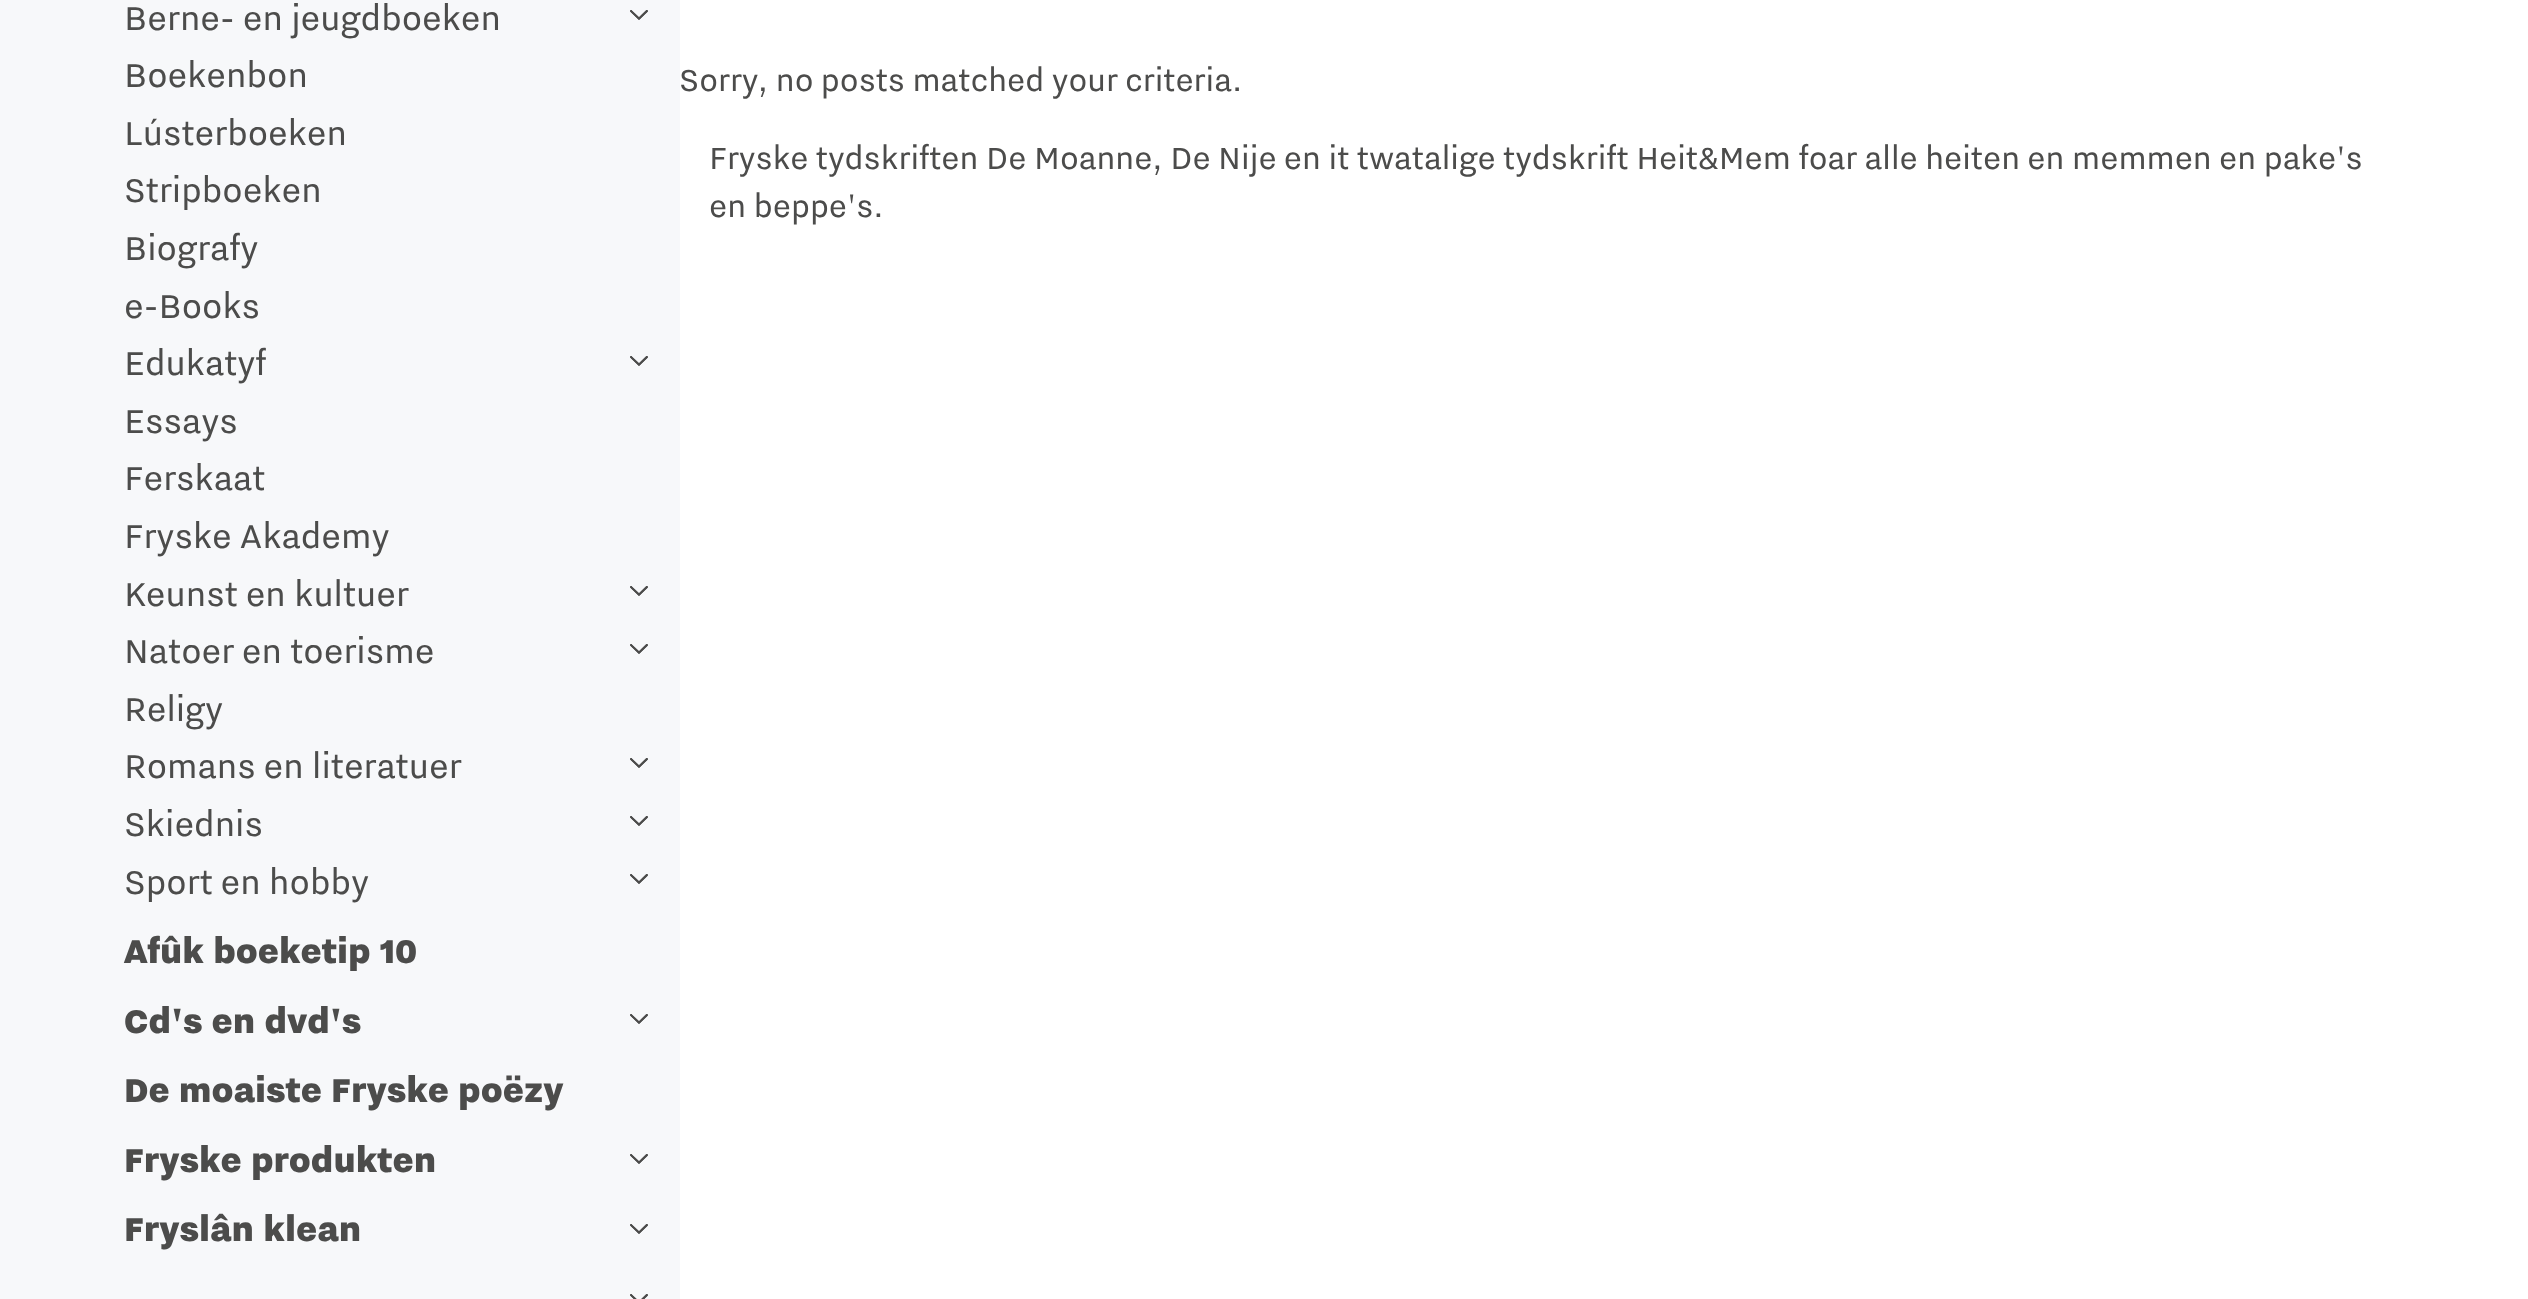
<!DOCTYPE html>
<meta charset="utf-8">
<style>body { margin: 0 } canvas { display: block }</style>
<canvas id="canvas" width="2528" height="1299"></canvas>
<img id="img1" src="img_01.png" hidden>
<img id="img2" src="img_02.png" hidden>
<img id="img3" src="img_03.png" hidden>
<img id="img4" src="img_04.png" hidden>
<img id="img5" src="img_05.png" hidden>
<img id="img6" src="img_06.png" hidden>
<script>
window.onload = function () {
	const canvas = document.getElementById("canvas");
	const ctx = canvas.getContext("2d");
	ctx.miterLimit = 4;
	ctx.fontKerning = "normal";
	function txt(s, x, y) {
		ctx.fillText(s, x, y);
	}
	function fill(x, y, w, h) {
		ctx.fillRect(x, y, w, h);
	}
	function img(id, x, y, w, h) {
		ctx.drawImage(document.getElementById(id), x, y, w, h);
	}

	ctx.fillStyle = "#FFFFFF";
	fill(0, 0, 2528, 1299);
	ctx.fillStyle = "#F7F8FA";
	fill(0, 0, 680, 1299);
	img("img1", 630, 10, 18, 10);
	img("img2", 630, 10, 18, 10);
	img("img1", 630, 356, 18, 10);
	img("img2", 630, 356, 18, 10);
	img("img1", 630, 586, 18, 10);
	img("img2", 630, 586, 18, 10);
	img("img1", 630, 644, 18, 10);
	img("img2", 630, 644, 18, 10);
	img("img1", 630, 758, 18, 10);
	img("img2", 630, 758, 18, 10);
	img("img1", 630, 816, 18, 10);
	img("img2", 630, 816, 18, 10);
	img("img3", 630, 874, 18, 10);
	img("img4", 630, 874, 18, 10);
	img("img1", 630, 1014, 18, 10);
	img("img2", 630, 1014, 18, 10);
	img("img1", 630, 1154, 18, 10);
	img("img2", 630, 1154, 18, 10);
	img("img1", 630, 1224, 18, 10);
	img("img2", 630, 1224, 18, 10);
	img("img5", 630, 1294, 18, 5);
	img("img6", 630, 1294, 18, 5);
	ctx.font = "41.6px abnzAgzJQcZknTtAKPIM";
	ctx.fillStyle = "#4C4C4B";
	txt("Berne- en jeugdboeken", 124, 30);
	txt("Boekenbon", 124, 87);
	txt("Lústerboeken", 124, 145);
	txt("Stripboeken", 124, 202);
	txt("Biografy", 124, 260);
	txt("e-Books", 124, 318);
	txt("Edukatyf", 124, 375);
	txt("Essays", 124, 433);
	txt("Ferskaat", 124, 490);
	txt("Fryske Akademy", 124, 548);
	txt("Keunst en kultuer", 124, 606);
	txt("Natoer en toerisme", 124, 663);
	txt("Religy", 124, 721);
	txt("Romans en literatuer", 124, 778);
	txt("Skiednis", 124, 836);
	txt("Sport en hobby", 124, 894);
	ctx.font = "900 41.6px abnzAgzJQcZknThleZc";
	txt("Afûk boeketip 10", 124, 963);
	txt("Cd's en dvd's", 124, 1033);
	txt("De moaiste Fryske poëzy", 124, 1102);
	txt("Fryske produkten", 124, 1172);
	txt("Fryslân klean", 124, 1241);
	ctx.font = "38.4px abnzAgzJQcZknTtAKPIM";
	txt("Sorry, no posts matched your criteria.", 679, 91);
	txt("Fryske tydskriften De Moanne, De Nije en it twatalige tydskrift Heit&Mem foar alle heiten en memmen en pake's", 709, 169);
	txt("en beppe's.", 709, 217);
};
</script>
